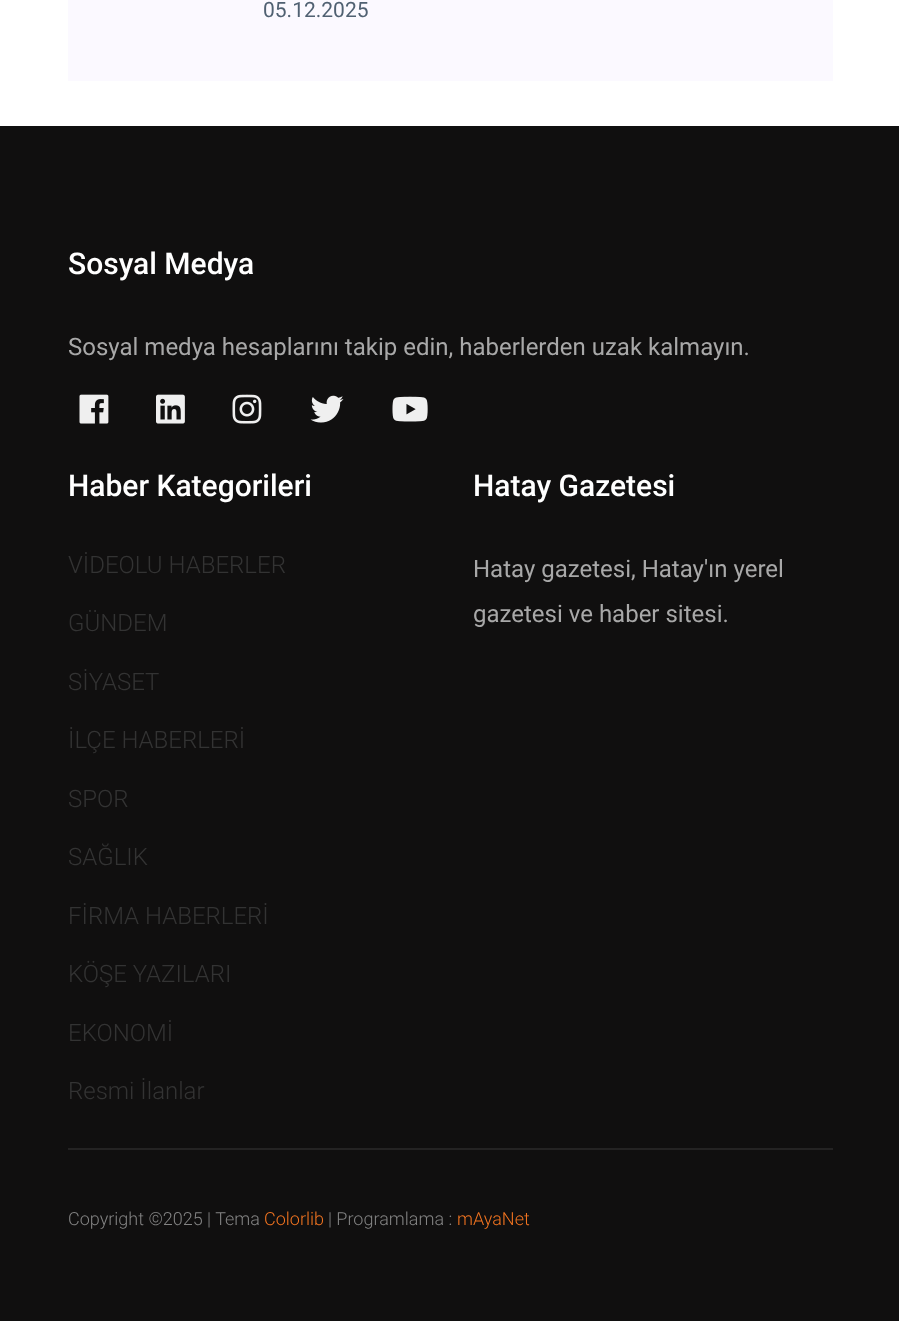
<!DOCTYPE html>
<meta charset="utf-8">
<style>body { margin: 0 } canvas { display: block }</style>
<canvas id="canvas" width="899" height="1321"></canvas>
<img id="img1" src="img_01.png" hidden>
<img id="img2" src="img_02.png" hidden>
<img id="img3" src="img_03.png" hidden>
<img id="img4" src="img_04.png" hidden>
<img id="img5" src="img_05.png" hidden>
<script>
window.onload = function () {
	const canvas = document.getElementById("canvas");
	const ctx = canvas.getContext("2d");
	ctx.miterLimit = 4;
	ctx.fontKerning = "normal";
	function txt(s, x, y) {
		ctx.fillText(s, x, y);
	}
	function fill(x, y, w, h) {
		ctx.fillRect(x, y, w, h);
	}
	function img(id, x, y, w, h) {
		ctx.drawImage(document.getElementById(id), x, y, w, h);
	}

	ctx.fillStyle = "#FFFFFF";
	fill(0, 0, 899, 1321);
	ctx.fillStyle = "#FBF9FF";
	fill(68, 0, 765, 81);
	ctx.fillStyle = "#100F0F";
	fill(0, 126, 899, 1195);
	img("img1", 79, 394, 30, 30);
	img("img2", 156, 394, 29, 30);
	img("img3", 232, 394, 30, 30);
	img("img4", 310, 395, 34, 28);
	img("img5", 392, 396, 36, 26);
	ctx.fillStyle = "#242323";
	fill(68, 1148, 765, 2);
	ctx.font = "21px Roboto";
	ctx.fillStyle = "#506172";
	txt("05.12.2025", 263, 17);
	ctx.font = "500 30px Roboto";
	ctx.fillStyle = "#FFFFFF";
	txt("Sosyal Medya", 68, 274);
	ctx.font = "24px Roboto";
	ctx.fillStyle = "#A8A8A8";
	txt("Sosyal medya hesaplarını takip edin, haberlerden uzak kalmayın.", 68, 355);
	ctx.font = "500 30px Roboto";
	ctx.fillStyle = "#FFFFFF";
	txt("Haber Kategorileri", 68, 496);
	ctx.font = "300 24px Roboto";
	ctx.fillStyle = "#333333";
	txt("VİDEOLU HABERLER", 68, 573);
	txt("GÜNDEM", 68, 631);
	txt("SİYASET", 68, 690);
	txt("İLÇE HABERLERİ", 68, 748);
	txt("SPOR", 68, 807);
	txt("SAĞLIK", 68, 865);
	txt("FİRMA HABERLERİ", 68, 924);
	txt("KÖŞE YAZILARI", 68, 982);
	txt("EKONOMİ", 68, 1041);
	txt("Resmi İlanlar", 68, 1099);
	ctx.font = "500 30px Roboto";
	ctx.fillStyle = "#FFFFFF";
	txt("Hatay Gazetesi", 473, 496);
	ctx.font = "24px Roboto";
	ctx.fillStyle = "#A8A8A8";
	txt("Hatay gazetesi, Hatay'ın yerel", 473, 577);
	txt("gazetesi ve haber sitesi.", 473, 622);
	ctx.font = "300 18px Roboto";
	ctx.fillStyle = "#838383";
	txt("Copyright ©2025 | Tema", 68, 1225);
	ctx.fillStyle = "#F27420";
	txt("Colorlib", 264, 1225);
	ctx.fillStyle = "#838383";
	txt("| Programlama :", 328, 1225);
	ctx.fillStyle = "#F27420";
	txt("mAyaNet", 457, 1225);
};
</script>
